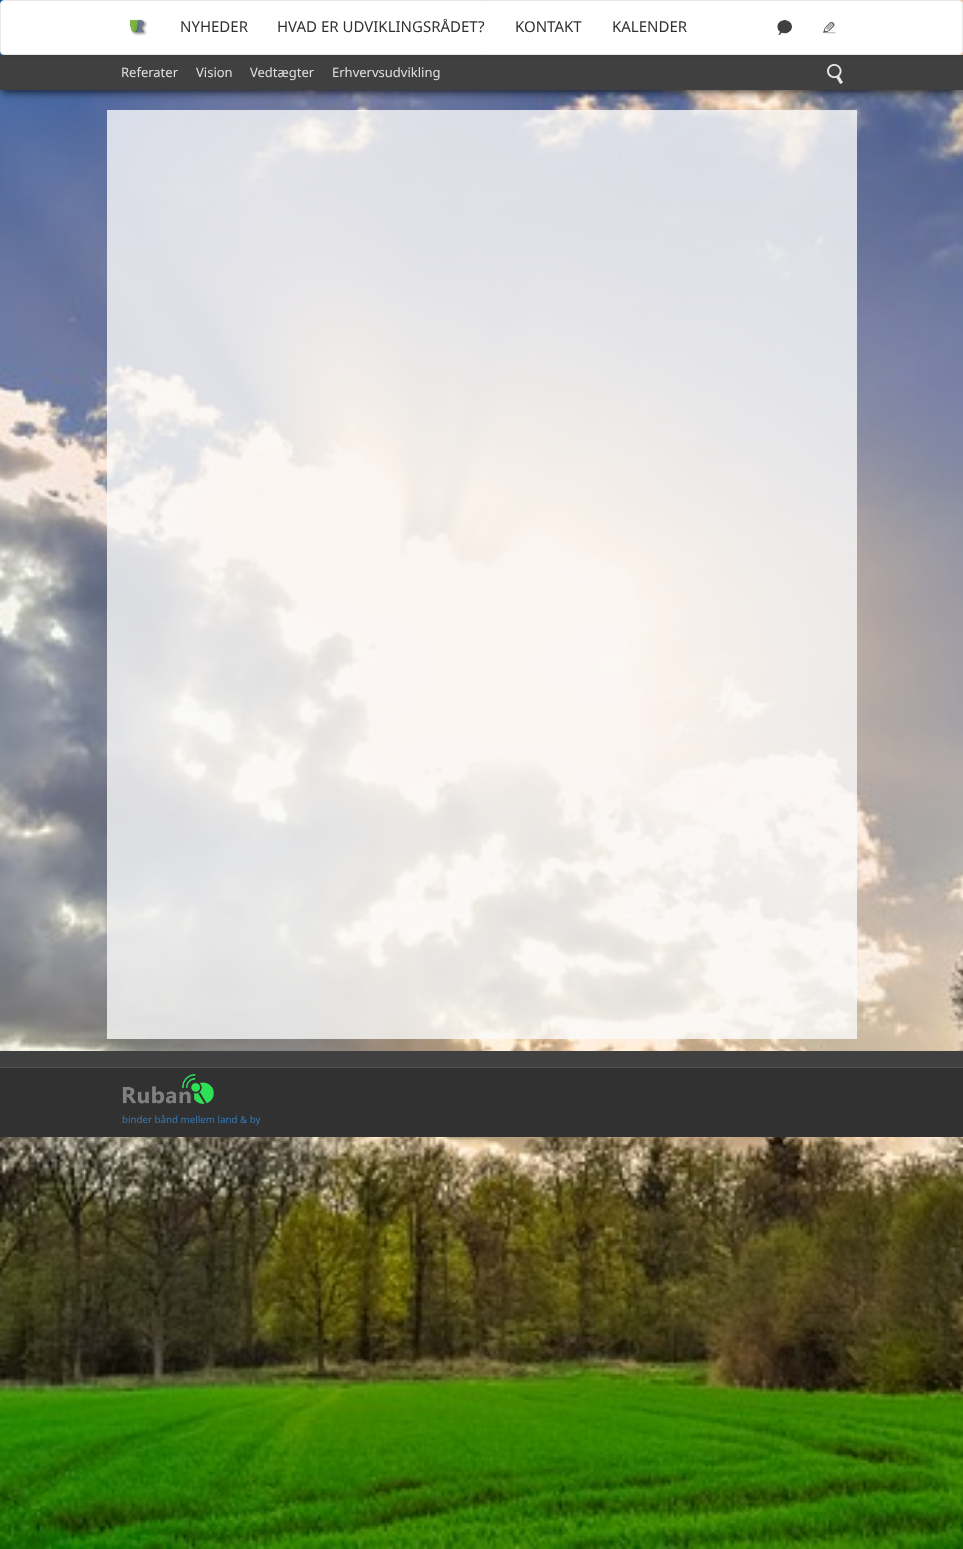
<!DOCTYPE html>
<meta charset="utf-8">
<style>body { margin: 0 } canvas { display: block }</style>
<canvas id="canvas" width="963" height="1549"></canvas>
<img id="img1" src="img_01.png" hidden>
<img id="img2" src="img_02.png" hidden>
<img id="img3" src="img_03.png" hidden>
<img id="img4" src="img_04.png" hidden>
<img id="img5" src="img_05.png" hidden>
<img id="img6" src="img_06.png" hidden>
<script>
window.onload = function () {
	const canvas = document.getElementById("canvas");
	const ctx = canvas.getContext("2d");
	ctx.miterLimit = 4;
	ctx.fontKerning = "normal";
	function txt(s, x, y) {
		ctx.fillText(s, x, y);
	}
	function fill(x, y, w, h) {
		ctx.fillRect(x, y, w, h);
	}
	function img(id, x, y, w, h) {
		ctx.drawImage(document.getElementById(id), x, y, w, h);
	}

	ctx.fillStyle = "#FFFFFF";
	fill(0, 0, 963, 1549);
	img("img1", 0, 0, 963, 1549);
	ctx.fillStyle = "rgba(0, 0, 0, 0.75)";
	ctx.filter = "blur(4.5px)";
	ctx.beginPath();
	ctx.rect(2, 61, 959, 31);
	ctx.fill();
	ctx.filter = "none";
	ctx.fillStyle = "#404040";
	fill(0, 55, 963, 35);
	ctx.fillStyle = "rgba(0, 0, 0, 0.07)";
	ctx.filter = "blur(2.5px)";
	ctx.beginPath();
	ctx.roundRect(0, 1, 963, 55, 4);
	ctx.fill();
	ctx.filter = "none";
	ctx.fillStyle = "#FFFFFF";
	ctx.beginPath();
	ctx.roundRect(0.5, 0.5, 962, 54, 3.5);
	ctx.fill();
	ctx.strokeStyle = "#E7E7E7";
	ctx.stroke();
	img("img2", 129, 19, 19, 17);
	img("img3", 777, 20, 15, 15);
	img("img4", 823, 22, 13, 12);
	img("img5", 827, 64, 16, 20);
	ctx.fillStyle = "rgba(250, 250, 250, 0.8)";
	fill(107, 110, 750, 929);
	ctx.fillStyle = "#404040";
	fill(0, 1051, 963, 16);
	ctx.fillStyle = "#313131";
	fill(0, 1068, 963, 69);
	ctx.fillStyle = "#4B524B";
	fill(0, 1067, 963, 1);
	img("img6", 122, 1074, 92, 30);
	ctx.font = "15px Noto Sans";
	ctx.fillStyle = "#303030";
	txt("NYHEDER", 180, 32);
	txt("HVAD ER UDVIKLINGSRÅDET?", 277, 32);
	txt("KONTAKT", 515, 32);
	txt("KALENDER", 612, 32);
	ctx.font = "13px Noto Sans";
	ctx.fillStyle = "#E0E0E0";
	txt("Referater", 121, 77);
	txt("Vision", 196, 77);
	txt("Vedtægter", 250, 77);
	txt("Erhvervsudvikling", 332, 77);
	ctx.font = "9.75px Noto Sans";
	ctx.fillStyle = "#337AB7";
	txt("binder bånd mellem land & by", 122, 1123);
};
</script>
